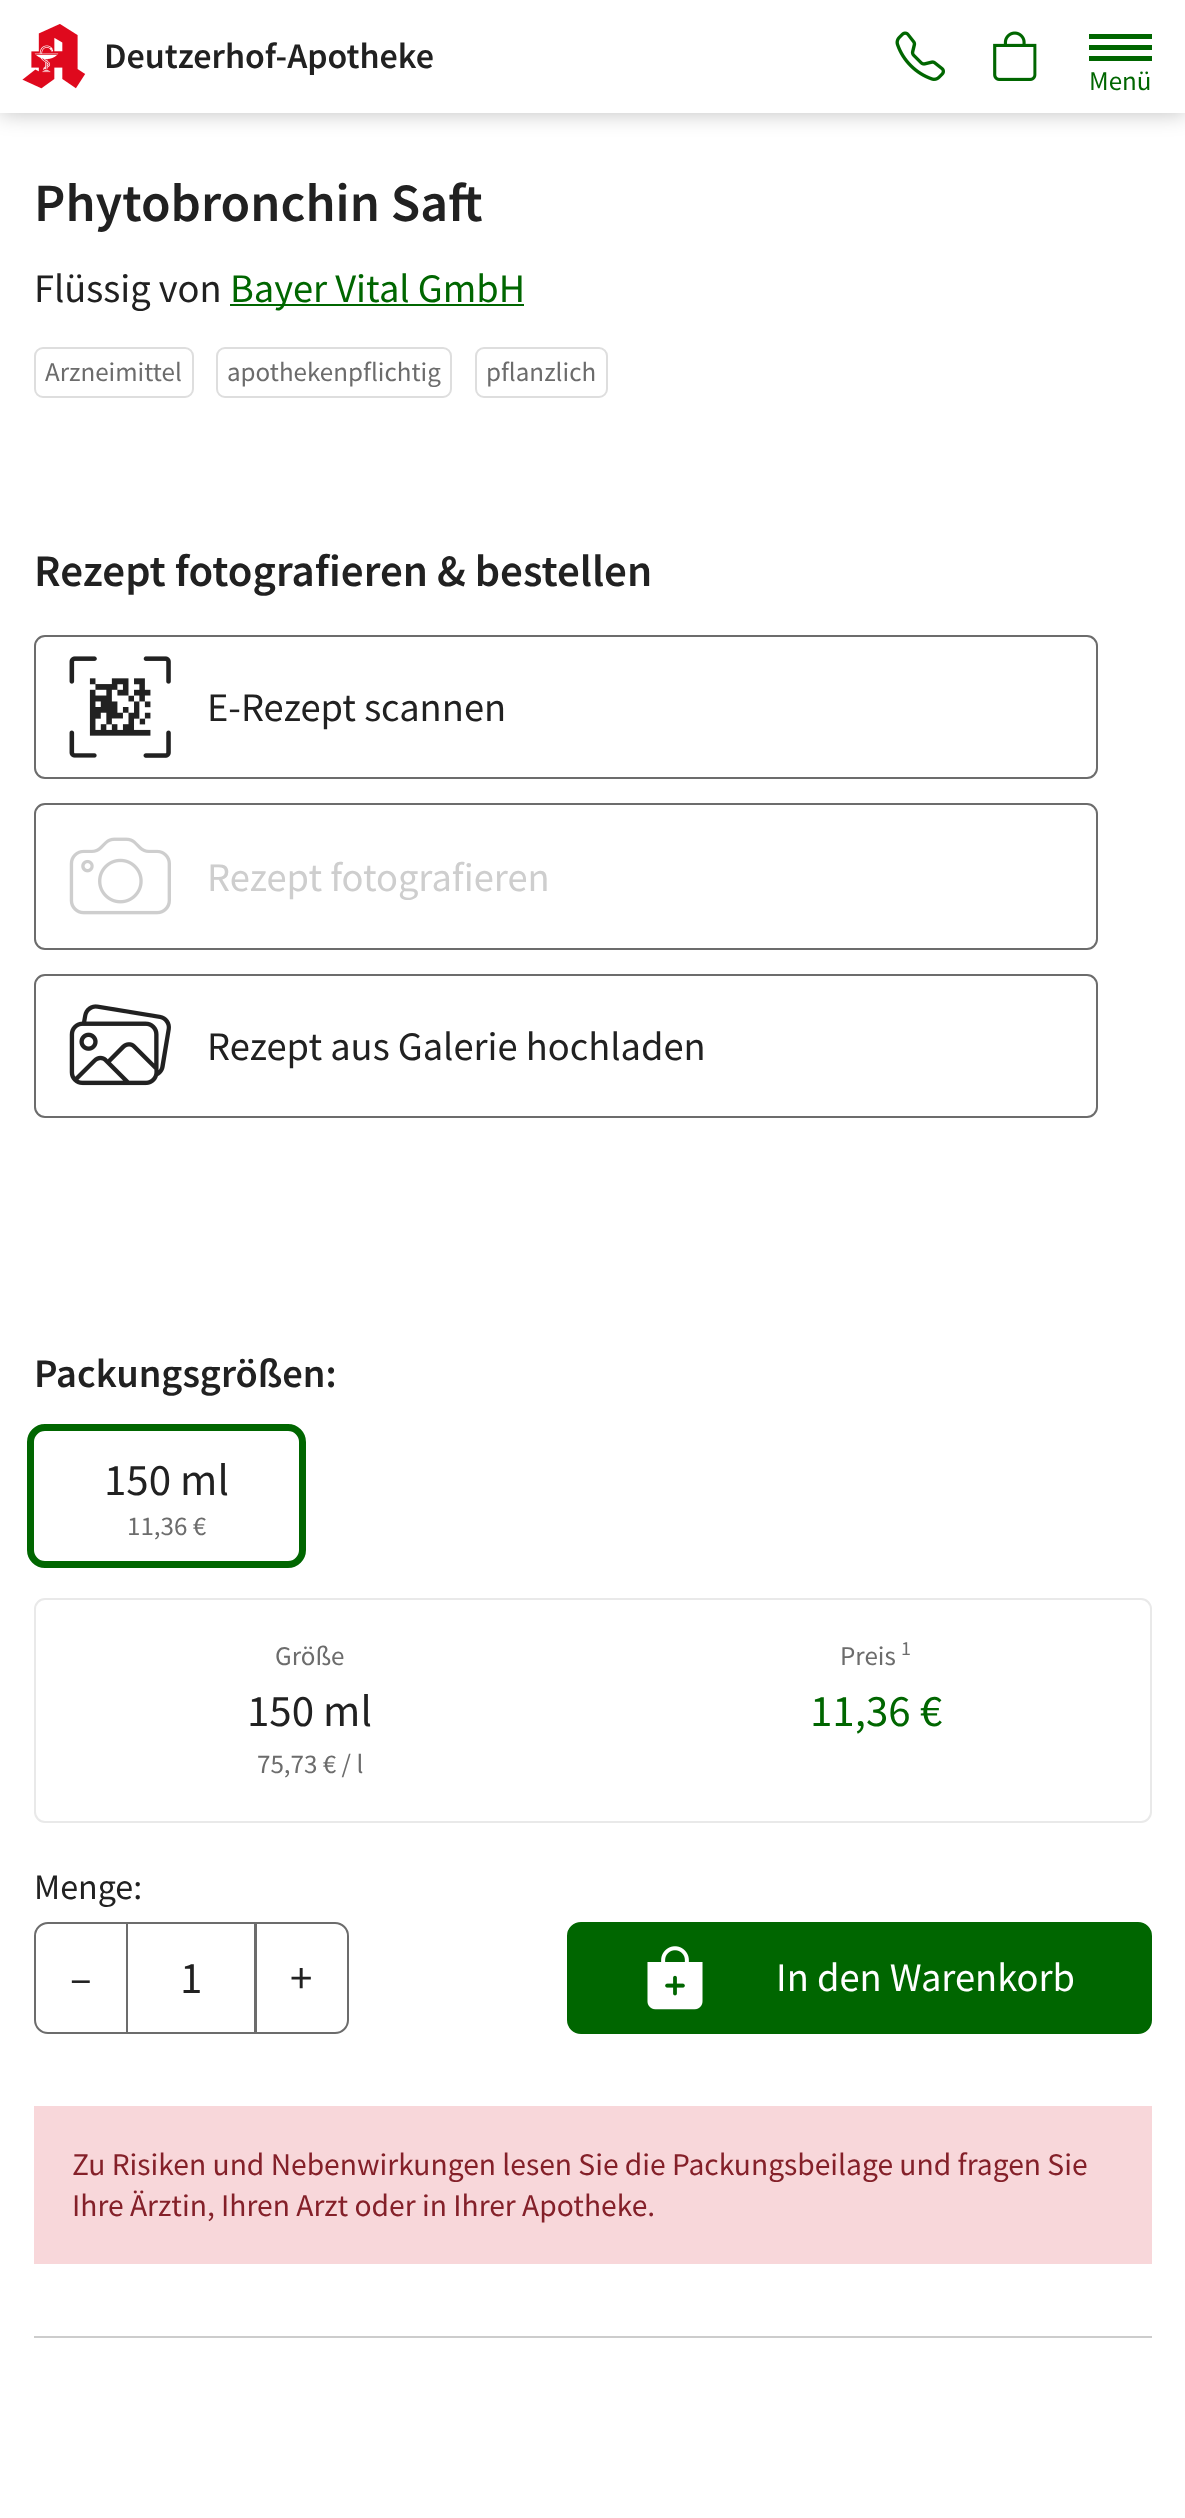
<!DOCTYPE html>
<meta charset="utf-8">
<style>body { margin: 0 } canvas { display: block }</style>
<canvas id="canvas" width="1185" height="2518"></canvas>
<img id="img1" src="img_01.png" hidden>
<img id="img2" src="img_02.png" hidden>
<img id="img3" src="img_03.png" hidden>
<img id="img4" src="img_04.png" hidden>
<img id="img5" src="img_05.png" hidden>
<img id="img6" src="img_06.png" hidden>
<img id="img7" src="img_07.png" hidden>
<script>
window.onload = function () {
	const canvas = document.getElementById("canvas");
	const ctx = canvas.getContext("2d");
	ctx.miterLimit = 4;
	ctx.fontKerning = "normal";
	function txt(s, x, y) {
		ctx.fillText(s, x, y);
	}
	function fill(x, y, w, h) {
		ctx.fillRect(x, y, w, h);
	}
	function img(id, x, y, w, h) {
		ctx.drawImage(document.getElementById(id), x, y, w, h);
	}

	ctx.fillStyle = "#FFFFFF";
	fill(0, 0, 1185, 2518);
	ctx.fillStyle = "rgba(0, 0, 0, 0.25)";
	ctx.filter = "blur(11px)";
	ctx.beginPath();
	ctx.rect(0, 0, 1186, 113);
	ctx.fill();
	ctx.filter = "none";
	ctx.fillStyle = "#FFFFFF";
	fill(0, 0, 1185, 113);
	img("img1", 22, 24, 64, 65);
	img("img2", 895, 31, 50, 50);
	img("img3", 993, 31, 44, 50);
	ctx.fillStyle = "#006600";
	fill(1089, 45, 63, 5);
	fill(1089, 34, 63, 5);
	fill(1089, 56, 63, 5);
	fill(230, 304, 294, 2);
	ctx.beginPath();
	ctx.roundRect(35, 348, 158, 49, 8);
	ctx.strokeStyle = "#DEDEDE";
	ctx.lineWidth = 2;
	ctx.stroke();
	ctx.beginPath();
	ctx.roundRect(217, 348, 234, 49, 8);
	ctx.stroke();
	ctx.beginPath();
	ctx.roundRect(476, 348, 131, 49, 8);
	ctx.stroke();
	ctx.beginPath();
	ctx.roundRect(35, 636, 1062, 142, 10);
	ctx.strokeStyle = "#6C6C6C";
	ctx.stroke();
	img("img4", 69, 656, 102, 102);
	ctx.beginPath();
	ctx.roundRect(35, 804, 1062, 145, 10);
	ctx.stroke();
	img("img5", 69, 837, 102, 78);
	ctx.beginPath();
	ctx.roundRect(35, 975, 1062, 142, 10);
	ctx.stroke();
	img("img6", 69, 1004, 102, 82);
	ctx.beginPath();
	ctx.roundRect(30.5, 1427.5, 272, 137, 14.5);
	ctx.strokeStyle = "#006600";
	ctx.lineWidth = 7;
	ctx.stroke();
	ctx.beginPath();
	ctx.roundRect(35, 1599, 1116, 223, 10);
	ctx.strokeStyle = "#E9E9E9";
	ctx.lineWidth = 2;
	ctx.stroke();
	ctx.strokeStyle = "#6C6C6C";
	ctx.strokeRect(127, 1923, 129, 110);
	ctx.beginPath();
	ctx.roundRect(35, 1923, 92, 110, [13, 0, 0, 13]);
	ctx.stroke();
	ctx.beginPath();
	ctx.roundRect(255, 1923, 93, 110, [0, 13, 13, 0]);
	ctx.stroke();
	ctx.beginPath();
	ctx.roundRect(568, 1923, 583, 110, 13);
	ctx.fill();
	ctx.strokeStyle = "#006600";
	ctx.stroke();
	img("img7", 647, 1946, 56, 64);
	ctx.fillStyle = "#F8D7DA";
	fill(34, 2106, 1118, 158);
	ctx.fillStyle = "#CCCCCC";
	fill(34, 2336, 1118, 2);
	ctx.font = "600 36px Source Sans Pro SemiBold";
	ctx.fillStyle = "#212121";
	txt("Deutzerhof-Apotheke", 104, 68);
	ctx.font = "27px Source Sans Pro";
	ctx.fillStyle = "#006600";
	txt("Menü", 1089, 90);
	ctx.font = "600 54px Source Sans Pro SemiBold";
	ctx.fillStyle = "#212121";
	txt("Phytobronchin Saft", 34, 221);
	ctx.font = "40.5px Source Sans Pro";
	txt("Flüssig von", 34, 302);
	ctx.fillStyle = "#006600";
	txt("Bayer Vital GmbH", 230, 302);
	ctx.font = "27px Source Sans Pro";
	ctx.fillStyle = "#6C6C6C";
	txt("Arzneimittel", 45, 381);
	txt("apothekenpflichtig", 227, 381);
	txt("pflanzlich", 486, 381);
	ctx.font = "600 45px Source Sans Pro SemiBold";
	ctx.fillStyle = "#212121";
	txt("Rezept fotografieren & bestellen", 34, 586);
	ctx.font = "40.5px Source Sans Pro";
	txt("E-Rezept scannen", 207, 721);
	ctx.fillStyle = "#CECECE";
	txt("Rezept fotografieren", 207, 891);
	ctx.fillStyle = "#212121";
	txt("Rezept aus Galerie hochladen", 207, 1060);
	ctx.font = "600 40.5px Source Sans Pro SemiBold";
	txt("Packungsgrößen:", 34, 1387);
	ctx.font = "45px Source Sans Pro";
	txt("150 ml", 104, 1495);
	ctx.font = "27px Source Sans Pro";
	ctx.fillStyle = "#6C6C6C";
	txt("11,36 €", 127, 1535);
	txt("Größe", 275, 1665);
	ctx.font = "45px Source Sans Pro";
	ctx.fillStyle = "#212121";
	txt("150 ml", 247, 1726);
	ctx.font = "27px Source Sans Pro";
	ctx.fillStyle = "#6C6C6C";
	txt("75,73 € / l", 257, 1773);
	txt("Preis", 840, 1665);
	ctx.font = "20px Source Sans Pro";
	txt("1", 901, 1655);
	ctx.font = "45px Source Sans Pro";
	ctx.fillStyle = "#006600";
	txt("11,36 €", 810, 1726);
	ctx.font = "36px Source Sans Pro";
	ctx.fillStyle = "#212121";
	txt("Menge:", 34, 1899);
	ctx.font = "45px Source Sans Pro";
	txt("–", 70, 1993);
	txt("1", 180, 1993);
	txt("+", 290, 1993);
	ctx.font = "40.5px Source Sans Pro";
	ctx.fillStyle = "#FFFFFF";
	txt("In den Warenkorb", 776, 1991);
	ctx.font = "31.5px Source Sans Pro";
	ctx.fillStyle = "#842029";
	txt("Zu Risiken und Nebenwirkungen lesen Sie die Packungsbeilage und fragen Sie", 72, 2175);
	txt("Ihre Ärztin, Ihren Arzt oder in Ihrer Apotheke.", 72, 2216);
};
</script>
